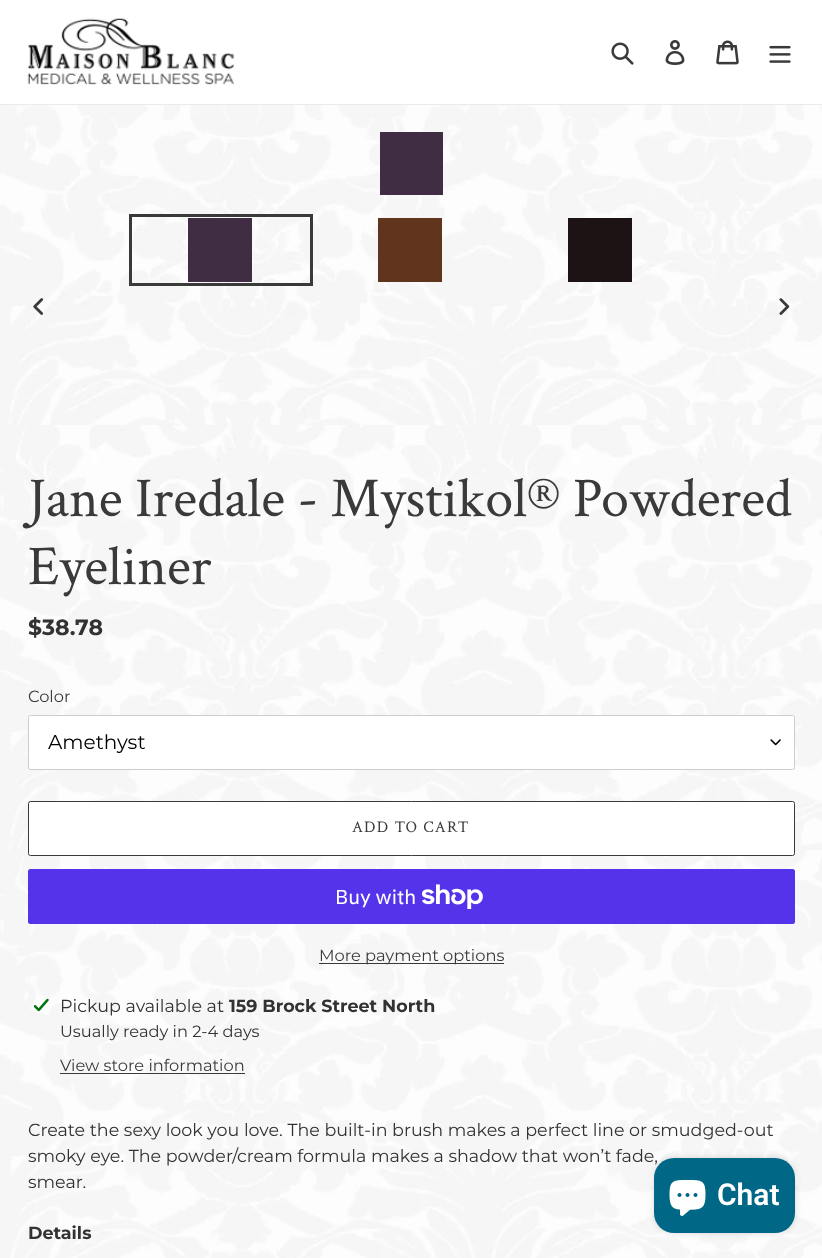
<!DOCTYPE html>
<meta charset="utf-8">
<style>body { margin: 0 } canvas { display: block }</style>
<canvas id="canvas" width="822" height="1258"></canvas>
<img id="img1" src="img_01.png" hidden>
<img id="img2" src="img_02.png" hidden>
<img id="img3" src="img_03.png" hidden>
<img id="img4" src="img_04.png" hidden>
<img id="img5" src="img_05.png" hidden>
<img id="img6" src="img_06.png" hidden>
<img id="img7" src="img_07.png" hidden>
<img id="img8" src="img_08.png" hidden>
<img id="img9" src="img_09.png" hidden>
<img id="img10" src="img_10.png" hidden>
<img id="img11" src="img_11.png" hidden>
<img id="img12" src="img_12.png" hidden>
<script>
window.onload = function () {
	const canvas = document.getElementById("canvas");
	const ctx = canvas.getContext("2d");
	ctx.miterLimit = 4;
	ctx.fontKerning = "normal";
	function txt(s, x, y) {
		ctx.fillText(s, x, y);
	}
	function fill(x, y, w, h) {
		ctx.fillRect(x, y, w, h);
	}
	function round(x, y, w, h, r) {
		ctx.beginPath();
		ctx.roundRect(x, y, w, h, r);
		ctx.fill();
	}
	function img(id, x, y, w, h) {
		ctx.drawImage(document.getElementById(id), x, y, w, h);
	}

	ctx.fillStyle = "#FFFFFF";
	fill(0, 0, 822, 1258);
	img("img1", 0, 105, 822, 1153);
	ctx.fillStyle = "#EBEBEB";
	fill(0, 104, 822, 1);
	img("img2", 27, 18, 207, 67);
	img("img3", 611, 42, 23, 23);
	img("img4", 665, 40, 20, 25);
	img("img5", 716, 40, 23, 25);
	img("img6", 769, 45, 22, 18);
	ctx.fillStyle = "#402D43";
	fill(380, 132, 63, 63);
	ctx.strokeStyle = "#3A3A3A";
	ctx.lineWidth = 3;
	ctx.strokeRect(130.5, 215.5, 181, 69);
	fill(188, 218, 64, 64);
	ctx.fillStyle = "#61341D";
	fill(378, 218, 64, 64);
	ctx.fillStyle = "#1D1314";
	fill(568, 218, 64, 64);
	img("img7", 33, 298, 11, 17);
	img("img8", 779, 298, 11, 17);
	ctx.fillStyle = "#FFFFFF";
	round(28, 715, 767, 55, 2.5);
	img("img9", 770, 739, 11, 7);
	ctx.beginPath();
	ctx.roundRect(28.5, 715.5, 766, 54, 2);
	ctx.strokeStyle = "#CCCCCC";
	ctx.lineWidth = 1;
	ctx.stroke();
	ctx.beginPath();
	ctx.roundRect(28.5, 801.5, 766, 54, 2);
	ctx.fill();
	ctx.strokeStyle = "#3A3A3A";
	ctx.stroke();
	ctx.fillStyle = "#5433EB";
	round(28, 869, 767, 55, 2.5);
	img("img10", 421, 884, 62, 25);
	ctx.fillStyle = "#3A3A3A";
	fill(319, 963, 185, 1);
	img("img11", 34, 998, 15, 14);
	fill(60, 1073, 185, 1);
	ctx.fillStyle = "rgba(0, 0, 0, 0.15)";
	ctx.filter = "blur(3px)";
	ctx.beginPath();
	ctx.roundRect(654, 1158, 141, 75, 20);
	ctx.fill();
	ctx.filter = "none";
	ctx.font = "56.25px Crimson Text";
	ctx.fillStyle = "#3A3A3A";
	txt("Jane Iredale - Mystikol® Powdered", 28, 516);
	txt("Eyeliner", 28, 584);
	ctx.font = "bold 22px Montserrat";
	ctx.fillStyle = "#333232";
	txt("$38.78", 28, 635);
	ctx.font = "16.25px Montserrat";
	ctx.fillStyle = "#3A3A3A";
	txt("Color", 28, 702);
	ctx.font = "20px Montserrat";
	ctx.fillStyle = "#000000";
	txt("Amethyst", 48, 749);
	ctx.letterSpacing = "1.25px";
	ctx.font = "16.25px Crimson Text";
	ctx.fillStyle = "#3A3A3A";
	txt("ADD TO CART", 352, 832);
	ctx.letterSpacing = "0px";
	ctx.font = "20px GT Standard";
	ctx.fillStyle = "#FFFFFF";
	txt("Buy with", 335, 904);
	ctx.font = "16.25px Montserrat";
	ctx.fillStyle = "#3A3A3A";
	txt("More payment options", 319, 961);
	ctx.font = "17.5px Montserrat";
	ctx.fillStyle = "#333232";
	txt("Pickup available at", 60, 1012);
	ctx.font = "bold 17.5px Montserrat";
	txt("159 Brock Street North", 229, 1012);
	ctx.font = "16.25px Montserrat";
	txt("Usually ready in 2-4 days", 60, 1037);
	ctx.fillStyle = "#3A3A3A";
	txt("View store information", 60, 1071);
	ctx.font = "17.5px Montserrat";
	ctx.fillStyle = "#333232";
	txt("Create the sexy look you love. The built-in brush makes a perfect line or smudged-out", 28, 1136);
	txt("smoky eye. The powder/cream formula makes a shadow that won’t fade,", 28, 1162);
	txt("smear.", 28, 1188);
	ctx.font = "bold 17.5px Montserrat";
	txt("Details", 28, 1239);
	ctx.fillStyle = "#006886";
	round(654, 1158, 141, 75, 20);
	img("img12", 669, 1180, 37, 36);
	ctx.font = "600 30px Roboto";
	ctx.fillStyle = "#FFFFFF";
	txt("Chat", 717, 1205);
};
</script>
